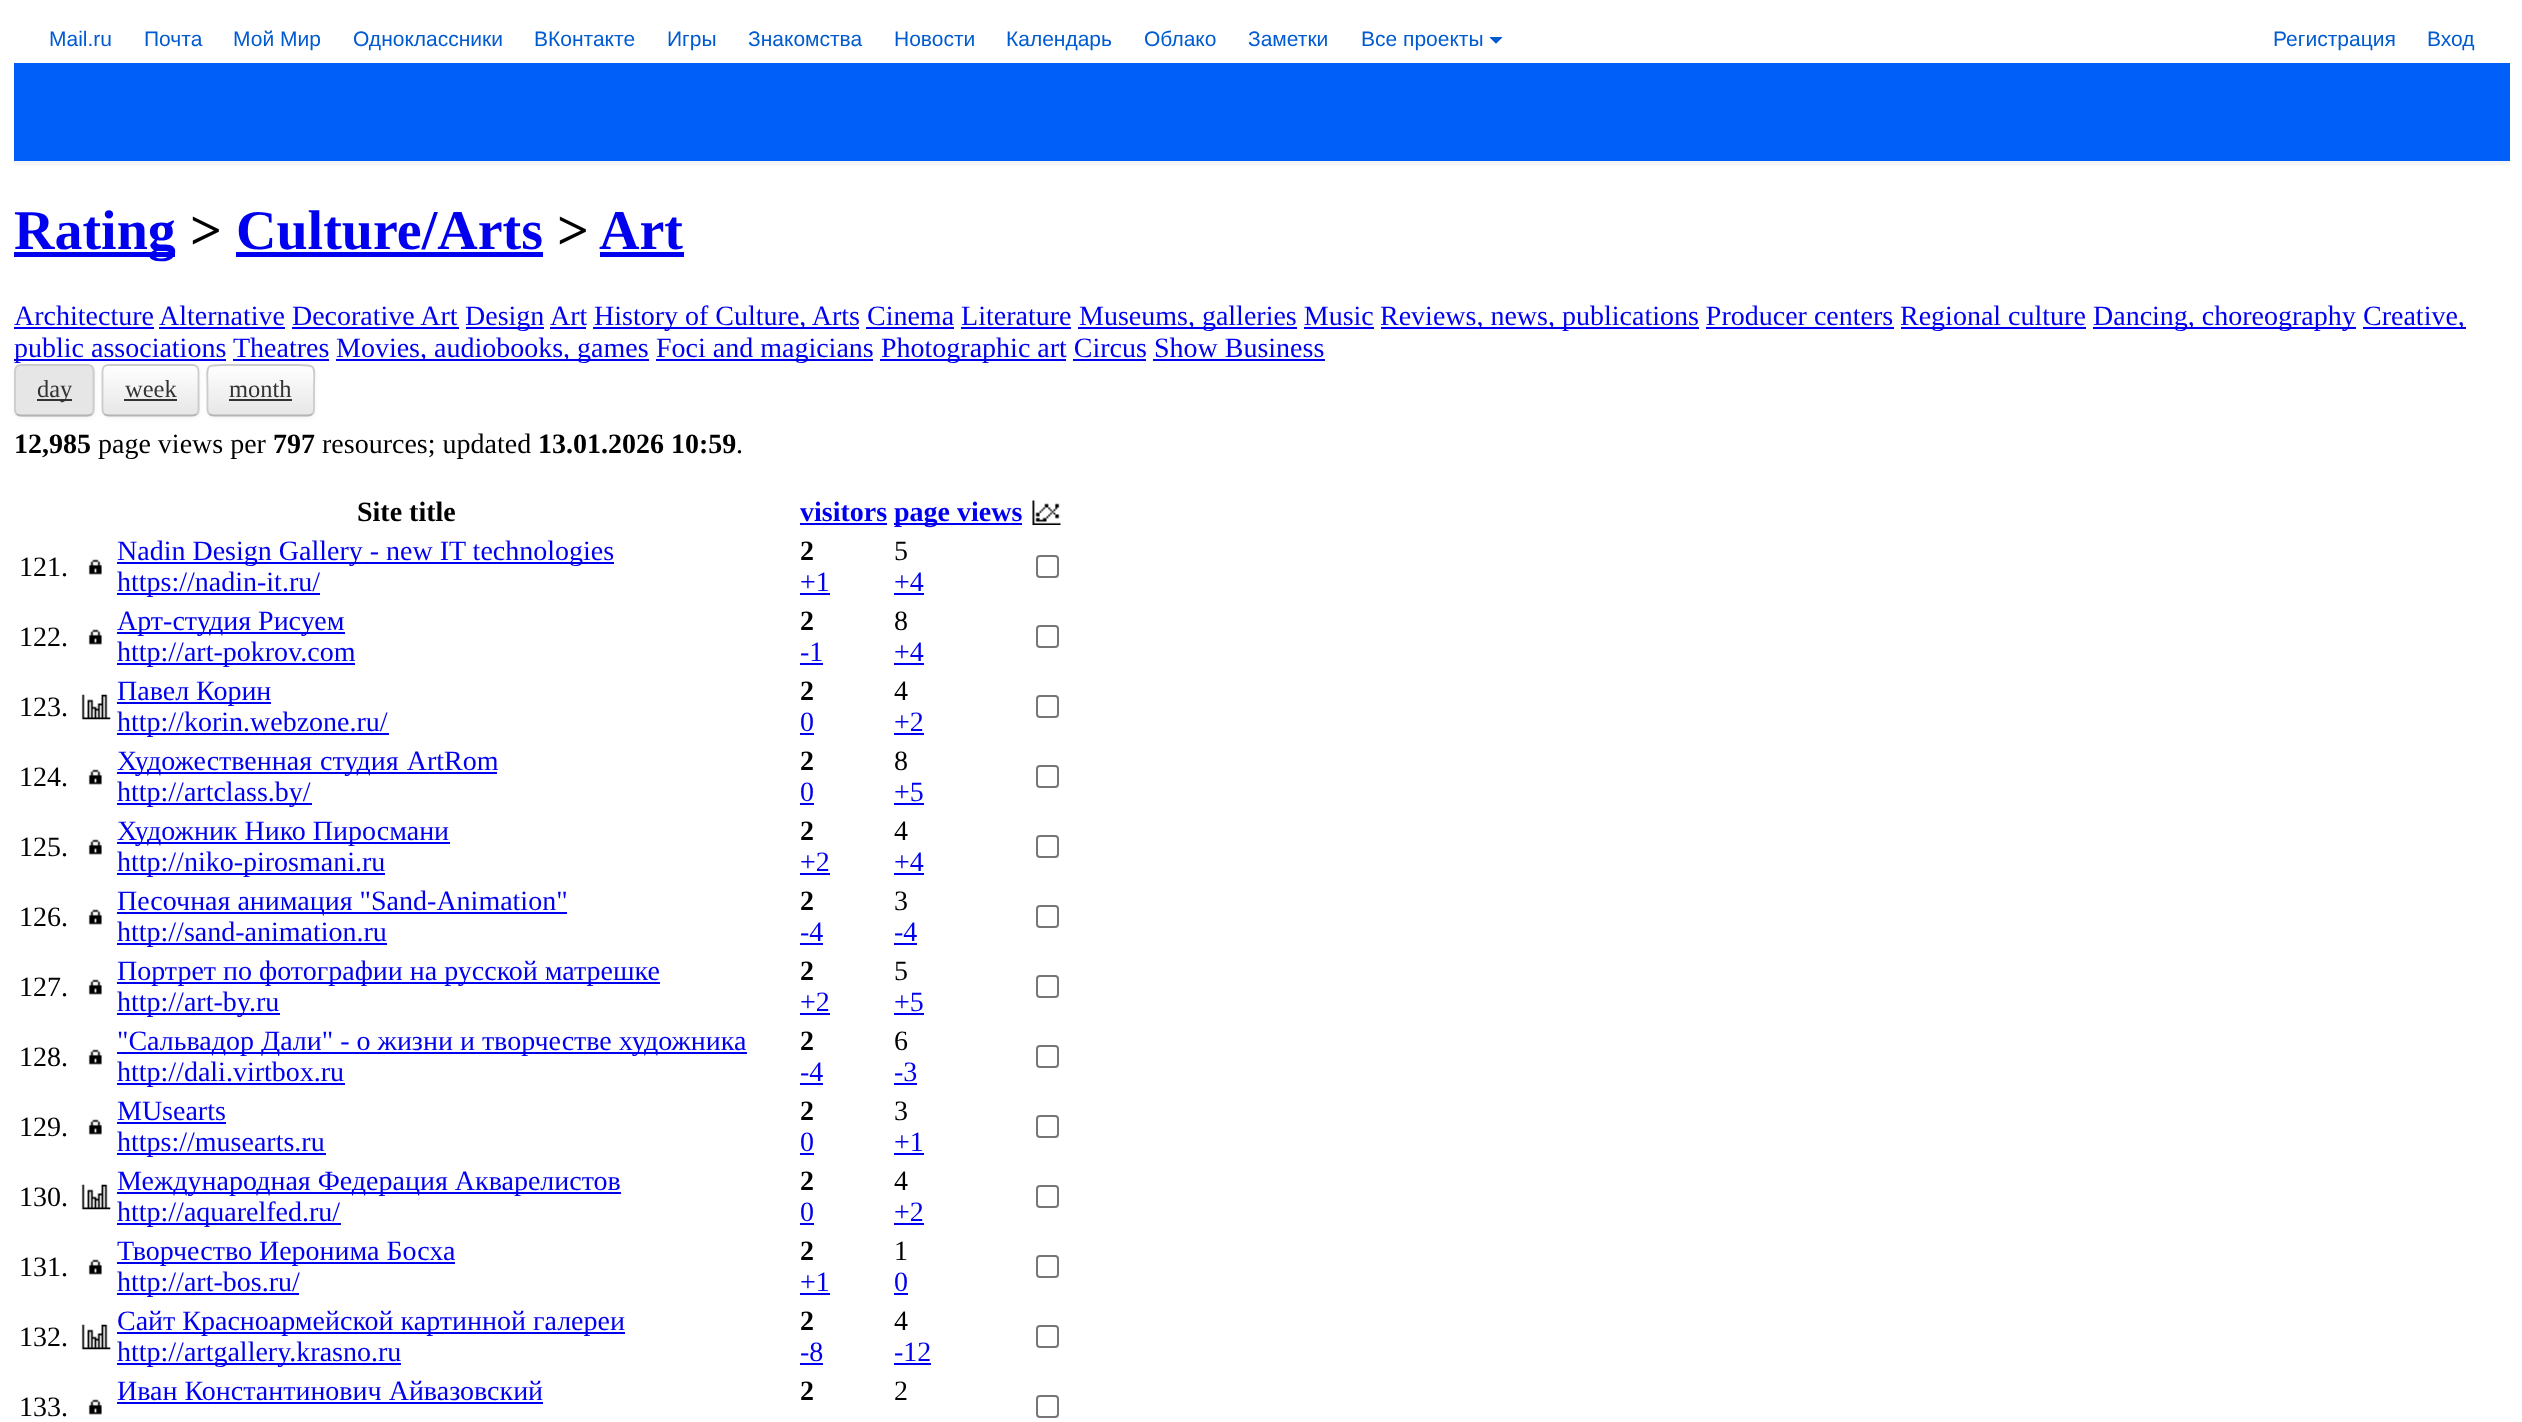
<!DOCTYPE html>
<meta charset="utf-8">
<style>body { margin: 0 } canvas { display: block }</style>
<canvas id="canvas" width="2522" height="1422"></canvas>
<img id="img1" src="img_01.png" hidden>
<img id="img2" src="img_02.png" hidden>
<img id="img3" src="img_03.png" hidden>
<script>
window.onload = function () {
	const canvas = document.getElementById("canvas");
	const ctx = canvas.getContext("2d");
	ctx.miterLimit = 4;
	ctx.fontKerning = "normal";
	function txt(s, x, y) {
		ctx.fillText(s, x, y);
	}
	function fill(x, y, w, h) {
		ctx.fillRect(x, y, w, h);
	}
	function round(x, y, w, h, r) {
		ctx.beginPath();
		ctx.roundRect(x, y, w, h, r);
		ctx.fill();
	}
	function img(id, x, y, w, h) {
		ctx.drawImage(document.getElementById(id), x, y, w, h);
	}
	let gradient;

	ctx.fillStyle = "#FFFFFF";
	fill(0, 0, 2522, 1422);
	ctx.fillStyle = "#005BD1";
	ctx.beginPath();
	ctx.moveTo(1489, 37);
	ctx.lineTo(1503, 37);
	ctx.lineTo(1496, 44);
	ctx.closePath();
	ctx.fill();
	ctx.fillStyle = "#FFFFFF";
	ctx.beginPath();
	ctx.moveTo(1503, 37);
	ctx.lineTo(1503, 51);
	ctx.lineTo(1496, 44);
	ctx.closePath();
	ctx.moveTo(1489, 51);
	ctx.lineTo(1489, 37);
	ctx.lineTo(1496, 44);
	ctx.closePath();
	ctx.fill();
	ctx.fillStyle = "#F5F5F5";
	ctx.beginPath();
	ctx.moveTo(14, 161);
	ctx.lineTo(14, 165);
	ctx.lineTo(2510, 165);
	ctx.lineTo(2510, 67);
	ctx.lineTo(2510, 161);
	ctx.closePath();
	ctx.fill();
	ctx.fillStyle = "#005FF9";
	fill(14, 63, 2496, 98);
	ctx.fillStyle = "#0000EE";
	fill(14, 252, 161, 5);
	fill(236, 252, 307, 5);
	fill(600, 252, 84, 5);
	fill(14, 327, 140, 2);
	fill(159, 327, 126, 2);
	fill(466, 327, 78, 2);
	fill(550, 327, 36, 2);
	fill(593, 327, 266, 2);
	fill(1078, 327, 219, 2);
	fill(1381, 327, 318, 2);
	fill(1901, 327, 185, 2);
	fill(2093, 327, 263, 2);
	fill(2363, 327, 103, 2);
	fill(292, 327, 167, 2);
	fill(866, 327, 88, 2);
	fill(961, 327, 110, 2);
	fill(1304, 327, 70, 2);
	fill(1706, 327, 188, 2);
	fill(14, 359, 212, 2);
	fill(233, 359, 96, 2);
	fill(336, 359, 313, 2);
	fill(656, 359, 217, 2);
	fill(880, 359, 186, 2);
	fill(1073, 359, 73, 2);
	fill(1153, 359, 172, 2);
	ctx.fillStyle = "rgba(0, 0, 0, 0.05)";
	ctx.filter = "blur(2px)";
	ctx.beginPath();
	ctx.roundRect(14, 366, 81, 52, 7);
	ctx.fill();
	ctx.filter = "none";
	ctx.fillStyle = "#E6E6E6";
	round(14, 364, 81, 53, 7);
	ctx.beginPath();
	ctx.moveTo(92, 414);
	ctx.bezierCurveTo(90.5, 415, 89, 415.5, 87.5, 415.5);
	ctx.lineTo(21, 415.5);
	ctx.bezierCurveTo(19.5, 415.5, 18, 415, 16.5, 414);
	ctx.strokeStyle = "#B3B3B3";
	ctx.lineWidth = 1.8;
	ctx.stroke();
	ctx.beginPath();
	ctx.moveTo(16.5, 414);
	ctx.bezierCurveTo(15.5, 412.5, 15, 411, 15, 409.5);
	ctx.lineTo(15, 371);
	ctx.bezierCurveTo(15, 369.5, 15.5, 368, 16.5, 366.5);
	ctx.bezierCurveTo(18, 365.5, 19.5, 365, 21, 365);
	ctx.lineTo(87.5, 365);
	ctx.bezierCurveTo(89, 365, 90.5, 365.5, 92, 366.5);
	ctx.bezierCurveTo(93, 368, 93.5, 369.5, 93.5, 371);
	ctx.lineTo(93.5, 409.5);
	ctx.bezierCurveTo(93.5, 411, 93, 412.5, 92, 414);
	ctx.strokeStyle = "#CCCCCC";
	ctx.stroke();
	ctx.fillStyle = "#333333";
	fill(37, 399, 35, 2);
	ctx.fillStyle = "rgba(0, 0, 0, 0.05)";
	ctx.filter = "blur(2px)";
	ctx.beginPath();
	ctx.roundRect(102, 366, 98, 52, 7);
	ctx.fill();
	ctx.filter = "none";
	ctx.fillStyle = "#F5F5F5";
	round(102, 364, 98, 53, 7);
	ctx.save();
	ctx.beginPath();
	ctx.roundRect(102, 364, 98, 53, 7);
	ctx.clip();
	gradient = ctx.createLinearGradient(151, 366, 151, 415);
	gradient.addColorStop(0, "#FFFFFF");
	gradient.addColorStop(1, "#E6E6E6");
	ctx.fillStyle = gradient;
	fill(102, 366, 98, 49);
	ctx.restore();
	ctx.beginPath();
	ctx.moveTo(197, 414);
	ctx.bezierCurveTo(195.5, 415, 194, 415.5, 192.5, 415.5);
	ctx.lineTo(108.5, 415.5);
	ctx.bezierCurveTo(107, 415.5, 105.5, 415, 104, 414);
	ctx.strokeStyle = "#B3B3B3";
	ctx.stroke();
	ctx.beginPath();
	ctx.moveTo(104, 414);
	ctx.bezierCurveTo(103, 412.5, 102.5, 411, 102.5, 409.5);
	ctx.lineTo(102.5, 371);
	ctx.bezierCurveTo(102.5, 369.5, 103, 368, 104, 366.5);
	ctx.bezierCurveTo(105.5, 365.5, 107, 365, 108.5, 365);
	ctx.lineTo(192.5, 365);
	ctx.bezierCurveTo(194, 365, 195.5, 365.5, 197, 366.5);
	ctx.bezierCurveTo(198, 368, 198.5, 369.5, 198.5, 371);
	ctx.lineTo(198.5, 409.5);
	ctx.bezierCurveTo(198.5, 411, 198, 412.5, 197, 414);
	ctx.strokeStyle = "#CCCCCC";
	ctx.stroke();
	ctx.fillStyle = "#333333";
	fill(124, 399, 53, 2);
	ctx.fillStyle = "rgba(0, 0, 0, 0.05)";
	ctx.filter = "blur(2px)";
	ctx.beginPath();
	ctx.roundRect(207, 366, 108, 52, 7);
	ctx.fill();
	ctx.filter = "none";
	ctx.fillStyle = "#F5F5F5";
	round(207, 364, 108, 53, 7);
	ctx.save();
	ctx.beginPath();
	ctx.roundRect(207, 364, 108, 53, 7);
	ctx.clip();
	gradient = ctx.createLinearGradient(261, 366, 261, 415);
	gradient.addColorStop(0, "#FFFFFF");
	gradient.addColorStop(1, "#E6E6E6");
	ctx.fillStyle = gradient;
	fill(207, 366, 108, 49);
	ctx.restore();
	ctx.beginPath();
	ctx.moveTo(312.5, 414);
	ctx.bezierCurveTo(311, 415, 309.5, 415.5, 308, 415.5);
	ctx.lineTo(213.5, 415.5);
	ctx.bezierCurveTo(212, 415.5, 210.5, 415, 209, 414);
	ctx.strokeStyle = "#B3B3B3";
	ctx.stroke();
	ctx.beginPath();
	ctx.moveTo(209, 414);
	ctx.bezierCurveTo(206.5, 411, 207.5, 406.5, 207.5, 403);
	ctx.lineTo(207.5, 390);
	ctx.bezierCurveTo(207.5, 363, 203, 365, 229, 365);
	ctx.lineTo(292, 365);
	ctx.bezierCurveTo(318.5, 365, 314, 363, 314, 390);
	ctx.lineTo(314, 403);
	ctx.bezierCurveTo(314, 406.5, 315, 411, 312.5, 414);
	ctx.strokeStyle = "#CCCCCC";
	ctx.stroke();
	ctx.fillStyle = "#333333";
	fill(229, 399, 63, 2);
	ctx.fillStyle = "#0000EE";
	fill(800, 523, 87, 2);
	fill(894, 523, 128, 2);
	img("img1", 1032, 500, 29, 25);
	img("img2", 88, 559, 14, 16);
	fill(117, 562, 497, 2);
	fill(117, 593, 203, 2);
	fill(800, 593, 30, 2);
	fill(894, 593, 30, 2);
	ctx.beginPath();
	ctx.roundRect(1037, 556, 21, 21, 3);
	ctx.strokeStyle = "#767676";
	ctx.lineWidth = 2;
	ctx.stroke();
	img("img2", 88, 629, 14, 16);
	fill(117, 632, 228, 2);
	fill(117, 663, 238, 2);
	fill(800, 663, 23, 2);
	fill(894, 663, 30, 2);
	ctx.beginPath();
	ctx.roundRect(1037, 626, 21, 21, 3);
	ctx.stroke();
	img("img3", 81, 694, 30, 26);
	fill(117, 702, 154, 2);
	fill(117, 733, 272, 2);
	fill(800, 733, 14, 2);
	fill(894, 733, 30, 2);
	ctx.beginPath();
	ctx.roundRect(1037, 696, 21, 21, 3);
	ctx.stroke();
	img("img2", 88, 769, 14, 16);
	fill(117, 772, 380, 2);
	fill(117, 803, 195, 2);
	fill(800, 803, 14, 2);
	fill(894, 803, 30, 2);
	ctx.beginPath();
	ctx.roundRect(1037, 766, 21, 21, 3);
	ctx.stroke();
	img("img2", 88, 839, 14, 16);
	fill(117, 842, 333, 2);
	fill(117, 873, 268, 2);
	fill(800, 873, 30, 2);
	fill(894, 873, 30, 2);
	ctx.beginPath();
	ctx.roundRect(1037, 836, 21, 21, 3);
	ctx.stroke();
	img("img2", 88, 909, 14, 16);
	fill(117, 912, 450, 2);
	fill(117, 943, 270, 2);
	fill(800, 943, 23, 2);
	fill(894, 943, 23, 2);
	ctx.beginPath();
	ctx.roundRect(1037, 906, 21, 21, 3);
	ctx.stroke();
	img("img2", 88, 979, 14, 16);
	fill(117, 982, 543, 2);
	fill(117, 1013, 163, 2);
	fill(800, 1013, 30, 2);
	fill(894, 1013, 30, 2);
	ctx.beginPath();
	ctx.roundRect(1037, 976, 21, 21, 3);
	ctx.stroke();
	img("img2", 88, 1049, 14, 16);
	fill(117, 1052, 630, 2);
	fill(117, 1083, 228, 2);
	fill(800, 1083, 23, 2);
	fill(894, 1083, 23, 2);
	ctx.beginPath();
	ctx.roundRect(1037, 1046, 21, 21, 3);
	ctx.stroke();
	img("img2", 88, 1119, 14, 16);
	fill(117, 1122, 109, 2);
	fill(117, 1153, 209, 2);
	fill(800, 1153, 14, 2);
	fill(894, 1153, 30, 2);
	ctx.beginPath();
	ctx.roundRect(1037, 1116, 21, 21, 3);
	ctx.stroke();
	img("img3", 81, 1184, 30, 26);
	fill(117, 1192, 504, 2);
	fill(117, 1223, 224, 2);
	fill(800, 1223, 14, 2);
	fill(894, 1223, 30, 2);
	ctx.beginPath();
	ctx.roundRect(1037, 1186, 21, 21, 3);
	ctx.stroke();
	img("img2", 88, 1259, 14, 16);
	fill(117, 1262, 338, 2);
	fill(117, 1293, 182, 2);
	fill(800, 1293, 30, 2);
	fill(894, 1293, 14, 2);
	ctx.beginPath();
	ctx.roundRect(1037, 1256, 21, 21, 3);
	ctx.stroke();
	img("img3", 81, 1324, 30, 26);
	fill(117, 1332, 508, 2);
	fill(117, 1363, 284, 2);
	fill(800, 1363, 23, 2);
	fill(894, 1363, 37, 2);
	ctx.beginPath();
	ctx.roundRect(1037, 1326, 21, 21, 3);
	ctx.stroke();
	fill(117, 1402, 426, 2);
	img("img2", 88, 1399, 14, 16);
	ctx.beginPath();
	ctx.roundRect(1037, 1396, 21, 21, 3);
	ctx.stroke();
	ctx.font = "21px Liberation Sans";
	ctx.fillStyle = "#005BD1";
	txt("Mail.ru", 49, 46);
	txt("Почта", 144, 46);
	txt("Мой Мир", 233, 46);
	txt("Одноклассники", 353, 46);
	txt("ВКонтакте", 534, 46);
	txt("Игры", 667, 46);
	txt("Знакомства", 748, 46);
	txt("Новости", 894, 46);
	txt("Календарь", 1006, 46);
	txt("Облако", 1144, 46);
	txt("Заметки", 1248, 46);
	txt("Все проекты", 1361, 46);
	txt("Регистрация", 2273, 46);
	txt("Вход", 2427, 46);
	ctx.font = "bold 56px Liberation Serif";
	ctx.fillStyle = "#0000EE";
	txt("Rating", 14, 249);
	ctx.fillStyle = "#000000";
	txt(">", 190, 249);
	ctx.fillStyle = "#0000EE";
	txt("Culture/Arts", 236, 249);
	ctx.fillStyle = "#000000";
	txt(">", 557, 249);
	ctx.fillStyle = "#0000EE";
	txt("Art", 599, 249);
	ctx.font = "28px Liberation Serif";
	txt("Architecture", 14, 325);
	txt("Alternative Decorative Art", 159, 325);
	txt("Design", 465, 325);
	txt("Art", 550, 325);
	txt("History of Culture, Arts Cinema Literature", 594, 325);
	txt("Museums, galleries Music", 1079, 325);
	txt("Reviews, news, publications Producer centers", 1380, 325);
	txt("Regional culture", 1900, 325);
	txt("Dancing, choreography", 2093, 325);
	txt("Creative,", 2363, 325);
	txt("public associations", 14, 357);
	txt("Theatres", 233, 357);
	txt("Movies, audiobooks, games", 336, 357);
	txt("Foci and magicians", 656, 357);
	txt("Photographic art Circus Show Business", 881, 357);
	ctx.font = "24.5px Liberation Serif";
	ctx.fillStyle = "#333333";
	txt("day", 37, 397);
	txt("week", 125, 397);
	txt("month", 229, 397);
	ctx.font = "bold 28px Liberation Serif";
	ctx.fillStyle = "#000000";
	txt("12,985", 14, 453);
	ctx.font = "28px Liberation Serif";
	txt("page views per", 98, 453);
	ctx.font = "bold 28px Liberation Serif";
	txt("797", 273, 453);
	ctx.font = "28px Liberation Serif";
	txt("resources; updated", 322, 453);
	ctx.font = "bold 28px Liberation Serif";
	txt("13.01.2026 10:59", 538, 453);
	ctx.font = "28px Liberation Serif";
	txt(".", 736, 453);
	ctx.font = "bold 28px Liberation Serif";
	txt("Site title", 357, 521);
	ctx.fillStyle = "#0000EE";
	txt("visitors", 800, 521);
	txt("page views", 894, 521);
	ctx.font = "28px Liberation Serif";
	ctx.fillStyle = "#000000";
	txt("121.", 19, 576);
	ctx.fillStyle = "#0000EE";
	txt("Nadin Design Gallery - new IT technologies", 117, 560);
	txt("https://nadin-it.ru/", 117, 591);
	ctx.font = "bold 28px Liberation Serif";
	ctx.fillStyle = "#000000";
	txt("2", 800, 560);
	ctx.font = "28px Liberation Serif";
	ctx.fillStyle = "#0000EE";
	txt("+1", 800, 591);
	ctx.fillStyle = "#000000";
	txt("5", 894, 560);
	ctx.fillStyle = "#0000EE";
	txt("+4", 894, 591);
	ctx.fillStyle = "#000000";
	txt("122.", 19, 646);
	ctx.fillStyle = "#0000EE";
	txt("Арт-студия Рисуем", 117, 630);
	txt("http://art-pokrov.com", 117, 661);
	ctx.font = "bold 28px Liberation Serif";
	ctx.fillStyle = "#000000";
	txt("2", 800, 630);
	ctx.font = "28px Liberation Serif";
	ctx.fillStyle = "#0000EE";
	txt("-1", 800, 661);
	ctx.fillStyle = "#000000";
	txt("8", 894, 630);
	ctx.fillStyle = "#0000EE";
	txt("+4", 894, 661);
	ctx.fillStyle = "#000000";
	txt("123.", 19, 716);
	ctx.fillStyle = "#0000EE";
	txt("Павел Корин", 117, 700);
	txt("http://korin.webzone.ru/", 117, 731);
	ctx.font = "bold 28px Liberation Serif";
	ctx.fillStyle = "#000000";
	txt("2", 800, 700);
	ctx.font = "28px Liberation Serif";
	ctx.fillStyle = "#0000EE";
	txt("0", 800, 731);
	ctx.fillStyle = "#000000";
	txt("4", 894, 700);
	ctx.fillStyle = "#0000EE";
	txt("+2", 894, 731);
	ctx.fillStyle = "#000000";
	txt("124.", 19, 786);
	ctx.wordSpacing = "1px";
	ctx.fillStyle = "#0000EE";
	txt("Художественная студия ArtRom", 117, 770);
	ctx.wordSpacing = "0px";
	txt("http://artclass.by/", 117, 801);
	ctx.font = "bold 28px Liberation Serif";
	ctx.fillStyle = "#000000";
	txt("2", 800, 770);
	ctx.font = "28px Liberation Serif";
	ctx.fillStyle = "#0000EE";
	txt("0", 800, 801);
	ctx.fillStyle = "#000000";
	txt("8", 894, 770);
	ctx.fillStyle = "#0000EE";
	txt("+5", 894, 801);
	ctx.fillStyle = "#000000";
	txt("125.", 19, 856);
	ctx.fillStyle = "#0000EE";
	txt("Художник Нико Пиросмани", 117, 840);
	txt("http://niko-pirosmani.ru", 117, 871);
	ctx.font = "bold 28px Liberation Serif";
	ctx.fillStyle = "#000000";
	txt("2", 800, 840);
	ctx.font = "28px Liberation Serif";
	ctx.fillStyle = "#0000EE";
	txt("+2", 800, 871);
	ctx.fillStyle = "#000000";
	txt("4", 894, 840);
	ctx.fillStyle = "#0000EE";
	txt("+4", 894, 871);
	ctx.fillStyle = "#000000";
	txt("126.", 19, 926);
	ctx.fillStyle = "#0000EE";
	txt("Песочная анимация \"Sand-Animation\"", 117, 910);
	txt("http://sand-animation.ru", 117, 941);
	ctx.font = "bold 28px Liberation Serif";
	ctx.fillStyle = "#000000";
	txt("2", 800, 910);
	ctx.font = "28px Liberation Serif";
	ctx.fillStyle = "#0000EE";
	txt("-4", 800, 941);
	ctx.fillStyle = "#000000";
	txt("3", 894, 910);
	ctx.fillStyle = "#0000EE";
	txt("-4", 894, 941);
	ctx.fillStyle = "#000000";
	txt("127.", 19, 996);
	ctx.fillStyle = "#0000EE";
	txt("Портрет по фотографии на русской матрешке", 117, 980);
	txt("http://art-by.ru", 117, 1011);
	ctx.font = "bold 28px Liberation Serif";
	ctx.fillStyle = "#000000";
	txt("2", 800, 980);
	ctx.font = "28px Liberation Serif";
	ctx.fillStyle = "#0000EE";
	txt("+2", 800, 1011);
	ctx.fillStyle = "#000000";
	txt("5", 894, 980);
	ctx.fillStyle = "#0000EE";
	txt("+5", 894, 1011);
	ctx.fillStyle = "#000000";
	txt("128.", 19, 1066);
	ctx.fillStyle = "#0000EE";
	txt("\"Сальвадор Дали\" - о жизни и творчестве художника", 117, 1050);
	txt("http://dali.virtbox.ru", 117, 1081);
	ctx.font = "bold 28px Liberation Serif";
	ctx.fillStyle = "#000000";
	txt("2", 800, 1050);
	ctx.font = "28px Liberation Serif";
	ctx.fillStyle = "#0000EE";
	txt("-4", 800, 1081);
	ctx.fillStyle = "#000000";
	txt("6", 894, 1050);
	ctx.fillStyle = "#0000EE";
	txt("-3", 894, 1081);
	ctx.fillStyle = "#000000";
	txt("129.", 19, 1136);
	ctx.fillStyle = "#0000EE";
	txt("MUsearts", 117, 1120);
	txt("https://musearts.ru", 117, 1151);
	ctx.font = "bold 28px Liberation Serif";
	ctx.fillStyle = "#000000";
	txt("2", 800, 1120);
	ctx.font = "28px Liberation Serif";
	ctx.fillStyle = "#0000EE";
	txt("0", 800, 1151);
	ctx.fillStyle = "#000000";
	txt("3", 894, 1120);
	ctx.fillStyle = "#0000EE";
	txt("+1", 894, 1151);
	ctx.fillStyle = "#000000";
	txt("130.", 19, 1206);
	ctx.fillStyle = "#0000EE";
	txt("Международная Федерация Акварелистов", 117, 1190);
	txt("http://aquarelfed.ru/", 117, 1221);
	ctx.font = "bold 28px Liberation Serif";
	ctx.fillStyle = "#000000";
	txt("2", 800, 1190);
	ctx.font = "28px Liberation Serif";
	ctx.fillStyle = "#0000EE";
	txt("0", 800, 1221);
	ctx.fillStyle = "#000000";
	txt("4", 894, 1190);
	ctx.fillStyle = "#0000EE";
	txt("+2", 894, 1221);
	ctx.fillStyle = "#000000";
	txt("131.", 19, 1276);
	ctx.fillStyle = "#0000EE";
	txt("Творчество Иеронима Босха", 117, 1260);
	txt("http://art-bos.ru/", 117, 1291);
	ctx.font = "bold 28px Liberation Serif";
	ctx.fillStyle = "#000000";
	txt("2", 800, 1260);
	ctx.font = "28px Liberation Serif";
	ctx.fillStyle = "#0000EE";
	txt("+1", 800, 1291);
	ctx.fillStyle = "#000000";
	txt("1", 894, 1260);
	ctx.fillStyle = "#0000EE";
	txt("0", 894, 1291);
	ctx.fillStyle = "#000000";
	txt("132.", 19, 1346);
	ctx.fillStyle = "#0000EE";
	txt("Сайт Красноармейской картинной галереи", 117, 1330);
	txt("http://artgallery.krasno.ru", 117, 1361);
	ctx.font = "bold 28px Liberation Serif";
	ctx.fillStyle = "#000000";
	txt("2", 800, 1330);
	ctx.font = "28px Liberation Serif";
	ctx.fillStyle = "#0000EE";
	txt("-8", 800, 1361);
	ctx.fillStyle = "#000000";
	txt("4", 894, 1330);
	ctx.fillStyle = "#0000EE";
	txt("-12", 894, 1361);
	txt("Иван Константинович Айвазовский", 117, 1400);
	ctx.font = "bold 28px Liberation Serif";
	ctx.fillStyle = "#000000";
	txt("2", 800, 1400);
	ctx.font = "28px Liberation Serif";
	txt("2", 894, 1400);
	txt("133.", 19, 1416);
};
</script>
